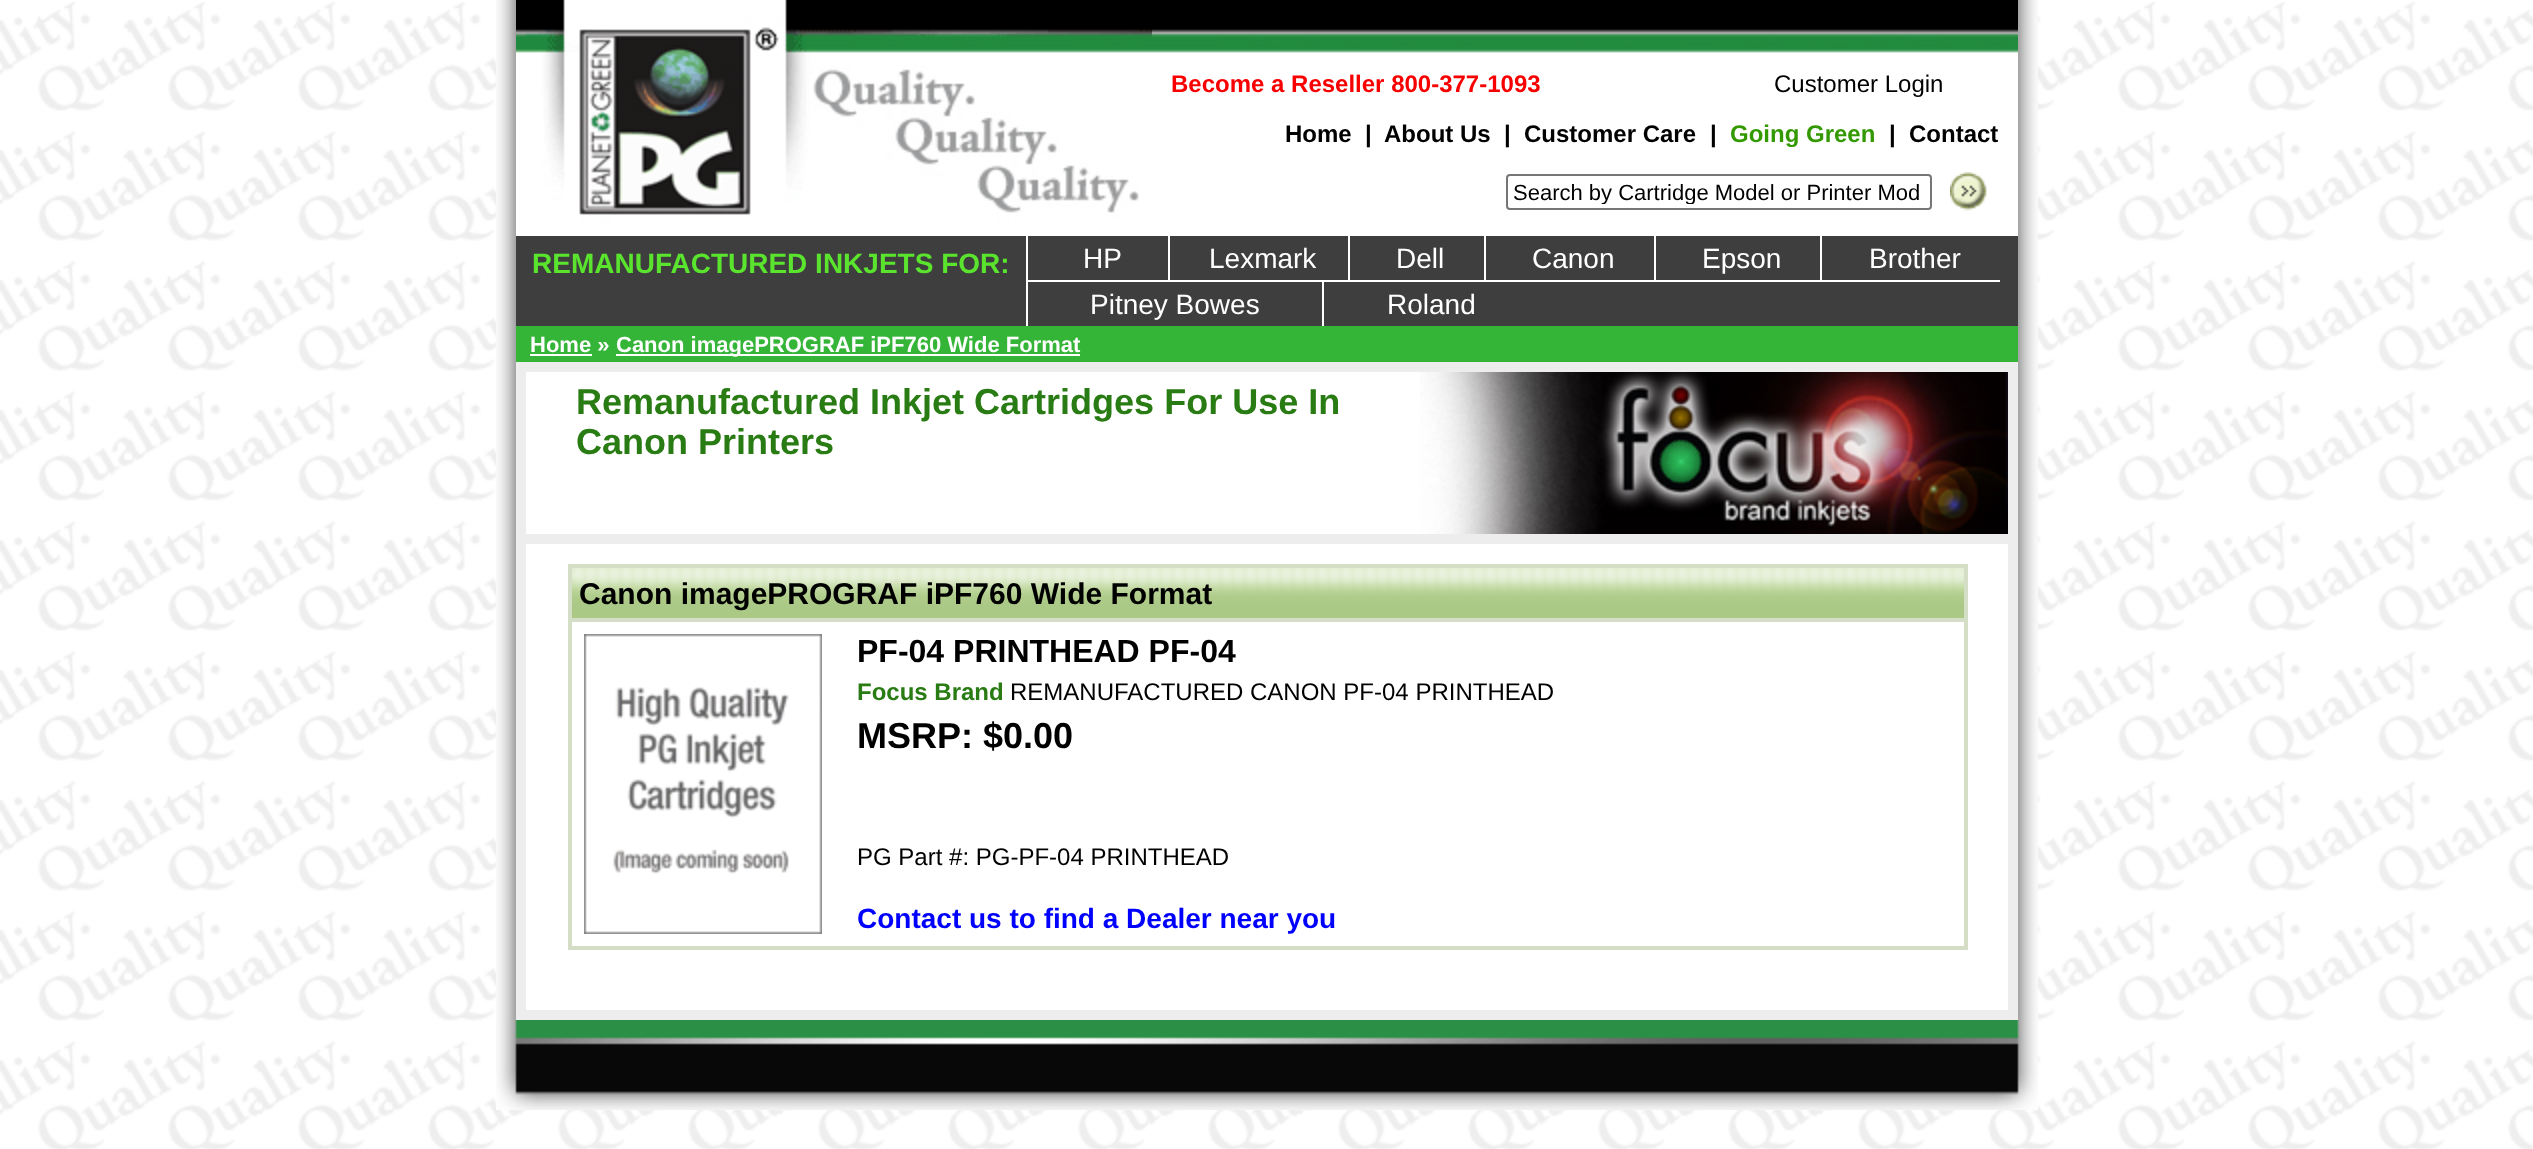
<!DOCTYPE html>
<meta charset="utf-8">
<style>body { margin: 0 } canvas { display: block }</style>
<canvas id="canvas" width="2533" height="1149"></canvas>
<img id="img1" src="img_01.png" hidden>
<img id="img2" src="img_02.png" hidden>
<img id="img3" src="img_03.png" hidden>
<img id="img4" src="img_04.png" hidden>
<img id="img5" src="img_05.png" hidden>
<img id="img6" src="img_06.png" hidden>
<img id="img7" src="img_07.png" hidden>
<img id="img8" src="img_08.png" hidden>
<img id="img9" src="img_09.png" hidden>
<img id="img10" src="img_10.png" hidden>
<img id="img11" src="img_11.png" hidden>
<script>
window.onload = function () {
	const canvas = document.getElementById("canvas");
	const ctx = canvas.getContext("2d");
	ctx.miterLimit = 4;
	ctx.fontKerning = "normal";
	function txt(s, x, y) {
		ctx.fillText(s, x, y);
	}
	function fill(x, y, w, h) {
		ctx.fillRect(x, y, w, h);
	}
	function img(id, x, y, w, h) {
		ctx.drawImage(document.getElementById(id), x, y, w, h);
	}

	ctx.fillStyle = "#FFFFFF";
	fill(0, 0, 2533, 1149);
	img("img1", 0, 2, 2533, 1147);
	img("img2", 496, 0, 20, 1020);
	img("img3", 516, 0, 1502, 236);
	img("img4", 516, 27, 290, 188);
	img("img5", 1152, 29, 863, 8);
	ctx.beginPath();
	ctx.roundRect(1507, 175, 424, 34, 3);
	ctx.strokeStyle = "#767676";
	ctx.lineWidth = 2;
	ctx.stroke();
	img("img6", 1950, 172, 37, 39);
	ctx.fillStyle = "#3E3E3E";
	fill(516, 236, 1502, 90);
	ctx.fillStyle = "#FFFFFF";
	fill(1168, 236, 2, 46);
	fill(1026, 280, 144, 2);
	fill(1026, 236, 2, 90);
	fill(1348, 236, 2, 46);
	fill(1170, 280, 180, 2);
	fill(1484, 236, 2, 46);
	fill(1350, 280, 136, 2);
	fill(1654, 236, 2, 46);
	fill(1486, 280, 170, 2);
	fill(1820, 236, 2, 46);
	fill(1656, 280, 344, 2);
	fill(1322, 282, 2, 44);
	ctx.fillStyle = "#35B538";
	fill(516, 326, 1502, 36);
	ctx.fillStyle = "#FFFFFF";
	fill(530, 354, 62, 2);
	fill(616, 354, 464, 2);
	ctx.strokeStyle = "#EDEDED";
	ctx.lineWidth = 10;
	ctx.strokeRect(521, 367, 1492, 648);
	fill(526, 391, 1482, 619);
	img("img7", 1420, 372, 588, 162);
	ctx.fillStyle = "#EDEDED";
	fill(526, 534, 1482, 10);
	ctx.fillStyle = "#D4DDC6";
	fill(568, 564, 1400, 386);
	img("img8", 572, 568, 1392, 50);
	ctx.fillStyle = "#FFFFFF";
	fill(572, 622, 1392, 324);
	img("img9", 584, 634, 238, 300);
	img("img10", 2018, 0, 20, 1020);
	img("img11", 496, 1020, 1542, 90);
	fill(2532, 1148, 1, 1);
	ctx.font = "bold 24px Liberation Sans";
	ctx.fillStyle = "#F90000";
	txt("Become a Reseller 800-377-1093", 1171, 92);
	ctx.font = "24px Liberation Sans";
	ctx.fillStyle = "#000000";
	txt("Customer Login", 1774, 92);
	ctx.font = "bold 24px Liberation Sans";
	txt("Home", 1285, 142);
	txt("|", 1365, 142);
	txt("About Us", 1384, 142);
	txt("|", 1504, 142);
	txt("Customer Care", 1524, 142);
	txt("|", 1710, 142);
	ctx.fillStyle = "#339900";
	txt("Going Green", 1730, 142);
	ctx.fillStyle = "#000000";
	txt("|", 1889, 142);
	txt("Contact", 1909, 142);
	ctx.save();
	ctx.beginPath();
	ctx.rect(1514, 180, 410, 24);
	ctx.clip();
	ctx.font = "22px Liberation Sans";
	txt("Search by Cartridge Model or Printer Mod", 1513, 200);
	ctx.restore();
	ctx.font = "bold 28px Liberation Sans";
	ctx.fillStyle = "#5AE42E";
	txt("REMANUFACTURED INKJETS FOR:", 532, 273);
	ctx.font = "28px Liberation Sans";
	ctx.fillStyle = "#FFFFFF";
	txt("HP", 1083, 268);
	txt("Lexmark", 1209, 268);
	txt("Dell", 1396, 268);
	txt("Canon", 1532, 268);
	txt("Epson", 1702, 268);
	txt("Brother", 1869, 268);
	txt("Pitney Bowes", 1090, 314);
	txt("Roland", 1387, 314);
	ctx.font = "bold 22px Liberation Sans";
	txt("Home »", 530, 352);
	txt("Canon imagePROGRAF iPF760 Wide Format", 616, 352);
	ctx.font = "bold 36px Liberation Sans";
	ctx.fillStyle = "#297B13";
	txt("Remanufactured Inkjet Cartridges For Use In", 576, 414);
	txt("Canon Printers", 576, 454);
	ctx.font = "bold 30px Liberation Sans";
	ctx.fillStyle = "#000000";
	txt("Canon imagePROGRAF iPF760 Wide Format", 579, 604);
	ctx.font = "bold 32px Liberation Sans";
	txt("PF-04 PRINTHEAD PF-04", 857, 662);
	ctx.font = "bold 24px Liberation Sans";
	ctx.fillStyle = "#297B13";
	txt("Focus Brand", 857, 700);
	ctx.font = "24px Liberation Sans";
	ctx.fillStyle = "#000000";
	txt("REMANUFACTURED CANON PF-04 PRINTHEAD", 1010, 700);
	ctx.font = "bold 36px Liberation Sans";
	txt("MSRP: $0.00", 857, 748);
	ctx.font = "24px Liberation Sans";
	txt("PG Part #: PG-PF-04 PRINTHEAD", 857, 865);
	ctx.font = "bold 28px Liberation Sans";
	ctx.fillStyle = "#0000FF";
	txt("Contact us to find a Dealer near you", 857, 928);
};
</script>
